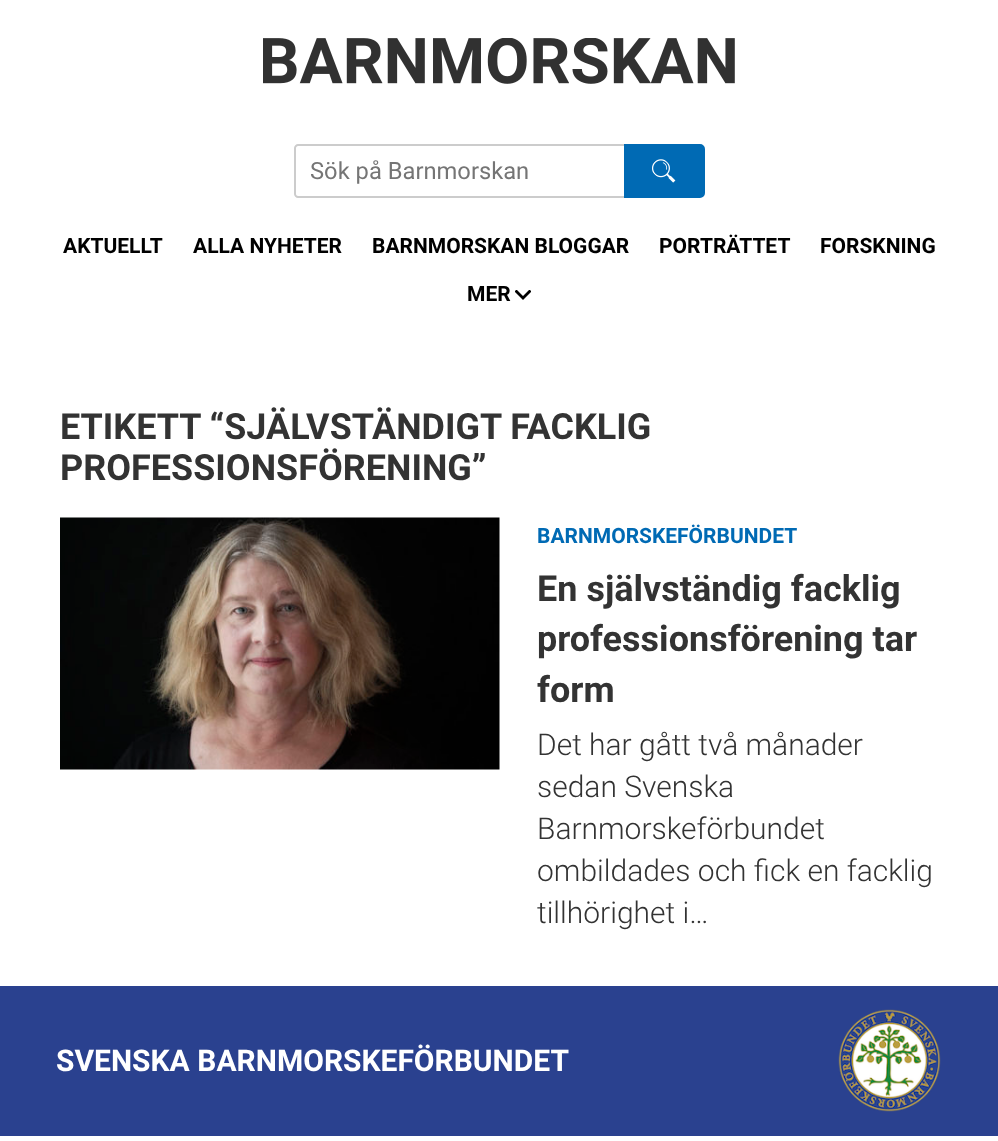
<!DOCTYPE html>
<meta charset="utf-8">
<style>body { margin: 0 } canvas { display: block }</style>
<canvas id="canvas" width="998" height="1141"></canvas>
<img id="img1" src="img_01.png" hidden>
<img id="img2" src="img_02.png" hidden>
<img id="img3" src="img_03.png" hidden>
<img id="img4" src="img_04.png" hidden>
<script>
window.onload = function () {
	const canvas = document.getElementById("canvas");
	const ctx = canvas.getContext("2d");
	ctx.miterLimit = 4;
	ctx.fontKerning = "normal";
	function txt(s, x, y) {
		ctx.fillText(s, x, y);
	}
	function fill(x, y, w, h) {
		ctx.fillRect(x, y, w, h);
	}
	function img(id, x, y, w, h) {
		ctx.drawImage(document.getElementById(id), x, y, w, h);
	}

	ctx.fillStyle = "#FFFFFF";
	fill(0, 0, 998, 1141);
	img("img1", 263, 38, 472, 46);
	ctx.fillStyle = "#CCCCCC";
	ctx.beginPath();
	ctx.moveTo(298, 144);
	ctx.lineTo(624, 144);
	ctx.lineTo(624, 198);
	ctx.lineTo(298, 198);
	ctx.bezierCurveTo(296, 198, 294, 196, 294, 194);
	ctx.lineTo(294, 148);
	ctx.bezierCurveTo(294, 146, 296, 144, 298, 144);
	ctx.closePath();
	ctx.moveTo(298, 146);
	ctx.lineTo(624, 146);
	ctx.lineTo(624, 196);
	ctx.lineTo(298, 196);
	ctx.bezierCurveTo(297, 196, 296, 195, 296, 194);
	ctx.lineTo(296, 148);
	ctx.bezierCurveTo(296, 147, 297, 146, 298, 146);
	ctx.closePath();
	ctx.fill("evenodd");
	ctx.fillStyle = "#006AB4";
	ctx.beginPath();
	ctx.roundRect(625, 145, 79, 52, [0, 4, 4, 0]);
	ctx.fill();
	ctx.strokeStyle = "#006AB4";
	ctx.lineWidth = 2;
	ctx.stroke();
	img("img2", 652, 159, 24, 24);
	ctx.save();
	ctx.beginPath();
	ctx.rect(515, 290, 16, 10);
	ctx.clip();
	ctx.fillStyle = "#000000";
	ctx.beginPath();
	ctx.moveTo(514.5, 291.5);
	ctx.lineTo(523, 300);
	ctx.lineTo(531.5, 291.5);
	ctx.lineTo(529.5, 289.5);
	ctx.lineTo(523, 296);
	ctx.lineTo(516.5, 289.5);
	ctx.closePath();
	ctx.fill();
	ctx.restore();
	img("img3", 60, 517, 440, 253);
	ctx.fillStyle = "#2A418F";
	fill(0, 986, 998, 150);
	img("img4", 838, 1009, 103, 103);
	ctx.font = "23.75px Roboto";
	ctx.fillStyle = "#757575";
	txt("Sök på Barnmorskan", 310, 179);
	ctx.font = "bold 21px Roboto";
	ctx.fillStyle = "#000000";
	txt("AKTUELLT", 63, 253);
	txt("ALLA NYHETER", 193, 253);
	txt("BARNMORSKAN BLOGGAR", 372, 253);
	txt("PORTRÄTTET", 659, 253);
	txt("FORSKNING", 820, 253);
	txt("MER", 467, 301);
	ctx.font = "bold 36px Roboto";
	ctx.fillStyle = "#333333";
	txt("ETIKETT “SJÄLVSTÄNDIGT FACKLIG", 60, 439);
	txt("PROFESSIONSFÖRENING”", 60, 480);
	ctx.font = "bold 21px Roboto";
	ctx.fillStyle = "#006AB4";
	txt("BARNMORSKEFÖRBUNDET", 537, 543);
	ctx.font = "bold 36px Roboto";
	ctx.fillStyle = "#333333";
	txt("En självständig facklig", 537, 601);
	txt("professionsförening tar", 537, 651);
	txt("form", 537, 702);
	ctx.font = "300 30px Roboto";
	txt("Det har gått två månader", 537, 755);
	txt("sedan Svenska", 537, 797);
	txt("Barnmorskeförbundet", 537, 839);
	txt("ombildades och fick en facklig", 537, 881);
	txt("tillhörighet i…", 537, 923);
	ctx.font = "bold 30px Roboto";
	ctx.fillStyle = "#FFFFFF";
	txt("SVENSKA BARNMORSKEFÖRBUNDET", 56, 1071);
};
</script>
